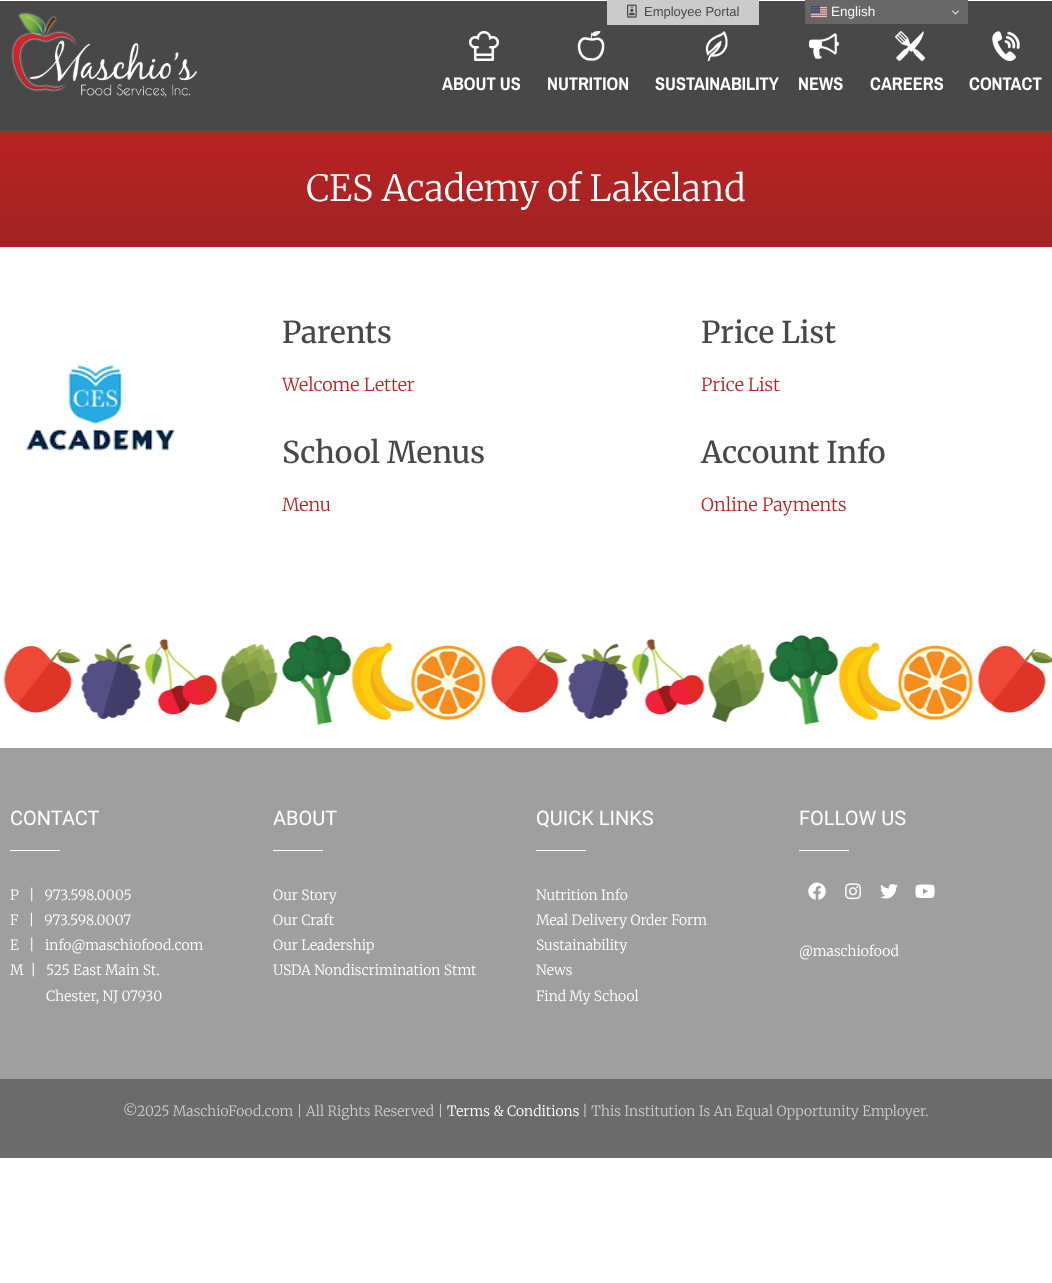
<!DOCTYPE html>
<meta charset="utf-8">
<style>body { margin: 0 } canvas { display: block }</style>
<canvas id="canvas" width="1052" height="1283"></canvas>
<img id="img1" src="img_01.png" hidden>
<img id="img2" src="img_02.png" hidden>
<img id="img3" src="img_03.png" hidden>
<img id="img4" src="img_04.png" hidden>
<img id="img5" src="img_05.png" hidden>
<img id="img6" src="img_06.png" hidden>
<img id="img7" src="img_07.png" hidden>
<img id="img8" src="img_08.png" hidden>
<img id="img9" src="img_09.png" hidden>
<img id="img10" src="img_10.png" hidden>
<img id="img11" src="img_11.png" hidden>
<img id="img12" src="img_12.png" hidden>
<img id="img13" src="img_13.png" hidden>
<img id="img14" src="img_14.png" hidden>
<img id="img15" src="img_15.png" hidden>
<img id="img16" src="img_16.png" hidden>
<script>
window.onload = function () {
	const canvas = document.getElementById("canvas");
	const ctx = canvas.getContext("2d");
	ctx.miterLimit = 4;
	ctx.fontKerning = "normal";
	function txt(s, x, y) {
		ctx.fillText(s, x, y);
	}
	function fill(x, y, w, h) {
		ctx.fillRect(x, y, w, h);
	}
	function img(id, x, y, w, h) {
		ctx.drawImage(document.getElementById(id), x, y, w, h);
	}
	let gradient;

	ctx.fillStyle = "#FFFFFF";
	fill(0, 0, 1052, 1283);
	ctx.fillStyle = "#484848";
	fill(0, 1, 1052, 130);
	ctx.fillStyle = "#CBCBCB";
	fill(607, 0, 152, 25);
	img("img1", 627, 4, 10, 14);
	img("img2", 11, 12, 187, 85);
	img("img3", 469, 31, 30, 30);
	img("img4", 577, 31, 28, 30);
	img("img5", 705, 31, 23, 30);
	img("img6", 809, 33, 30, 26);
	img("img7", 895, 31, 30, 30);
	img("img8", 992, 31, 28, 30);
	gradient = ctx.createLinearGradient(526, 131, 526, 247);
	gradient.addColorStop(0, "#B92323");
	gradient.addColorStop(1, "#A12323");
	ctx.fillStyle = gradient;
	fill(0, 131, 1052, 116);
	ctx.fillStyle = "#666766";
	fill(805, 0, 163, 24);
	img("img9", 811, 6, 16, 12);
	img("img10", 952, 10, 7, 5);
	img("img11", 25, 364, 151, 87);
	img("img12", 3, 635, 1049, 90);
	ctx.fillStyle = "#9F9F9F";
	fill(0, 748, 1052, 331);
	ctx.fillStyle = "#FFFFFF";
	fill(10, 850, 50, 1);
	fill(273, 850, 50, 1);
	fill(536, 850, 50, 1);
	fill(799, 850, 50, 1);
	img("img13", 808, 882, 18, 18);
	img("img14", 845, 883, 16, 17);
	img("img15", 880, 884, 18, 15);
	img("img16", 915, 884, 20, 14);
	ctx.fillStyle = "#6B6B6B";
	fill(0, 1079, 1052, 79);
	ctx.font = "13px Liberation Sans";
	ctx.fillStyle = "#484848";
	txt("Employee Portal", 644, 16);
	ctx.font = "bold 20px Pragati Narrow";
	ctx.fillStyle = "#FFFFFF";
	txt("ABOUT US", 442, 90);
	txt("NUTRITION", 547, 90);
	txt("SUSTAINABILITY", 655, 90);
	txt("NEWS", 798, 90);
	txt("CAREERS", 870, 90);
	txt("CONTACT", 969, 90);
	ctx.font = "300 36px Merriweather";
	txt("CES Academy of Lakeland", 306, 201);
	ctx.font = "13.5px Liberation Sans";
	ctx.fillStyle = "#F7F7F7";
	txt("English", 831, 16);
	ctx.font = "500 30px Merriweather";
	ctx.fillStyle = "#484848";
	txt("Parents", 282, 343);
	ctx.font = "300 18px Merriweather";
	ctx.fillStyle = "#B92323";
	txt("Welcome Letter", 282, 391);
	ctx.font = "500 30px Merriweather";
	ctx.fillStyle = "#484848";
	txt("School Menus", 282, 463);
	ctx.font = "300 18px Merriweather";
	ctx.fillStyle = "#B92323";
	txt("Menu", 282, 511);
	ctx.font = "500 30px Merriweather";
	ctx.fillStyle = "#484848";
	txt("Price List", 701, 343);
	ctx.font = "300 18px Merriweather";
	ctx.fillStyle = "#B92323";
	txt("Price List", 701, 391);
	ctx.font = "500 30px Merriweather";
	ctx.fillStyle = "#484848";
	txt("Account Info", 701, 463);
	ctx.font = "300 18px Merriweather";
	ctx.fillStyle = "#B92323";
	txt("Online Payments", 701, 511);
	ctx.font = "20px Roboto";
	ctx.fillStyle = "#FFFFFF";
	txt("CONTACT", 10, 825);
	ctx.font = "300 14px Merriweather";
	txt("P   |   973.598.0005", 10, 900);
	txt("F   |   973.598.0007", 10, 925);
	txt("E   |", 10, 950);
	txt("info@maschiofood.com", 45, 950);
	txt("M  |   525 East Main St.", 10, 975);
	txt("Chester, NJ 07930", 46, 1001);
	ctx.font = "20px Roboto";
	txt("ABOUT", 273, 825);
	ctx.font = "300 14px Merriweather";
	txt("Our Story", 273, 900);
	txt("Our Craft", 273, 925);
	txt("Our Leadership", 273, 950);
	txt("USDA Nondiscrimination Stmt", 273, 975);
	ctx.font = "20px Roboto";
	txt("QUICK LINKS", 536, 825);
	ctx.font = "300 14px Merriweather";
	txt("Nutrition Info", 536, 900);
	txt("Meal Delivery Order Form", 536, 925);
	txt("Sustainability", 536, 950);
	txt("News", 536, 975);
	txt("Find My School", 536, 1001);
	ctx.font = "20px Roboto";
	txt("FOLLOW US", 799, 825);
	ctx.font = "300 14px Merriweather";
	txt("@maschiofood", 799, 956);
	ctx.fillStyle = "#CCCCCC";
	txt("©2025 MaschioFood.com | All Rights Reserved |", 123, 1116);
	ctx.fillStyle = "#FFFFFF";
	txt("Terms & Conditions", 447, 1116);
	ctx.fillStyle = "#CCCCCC";
	txt("| This Institution Is An Equal Opportunity Employer.", 582, 1116);
};
</script>
